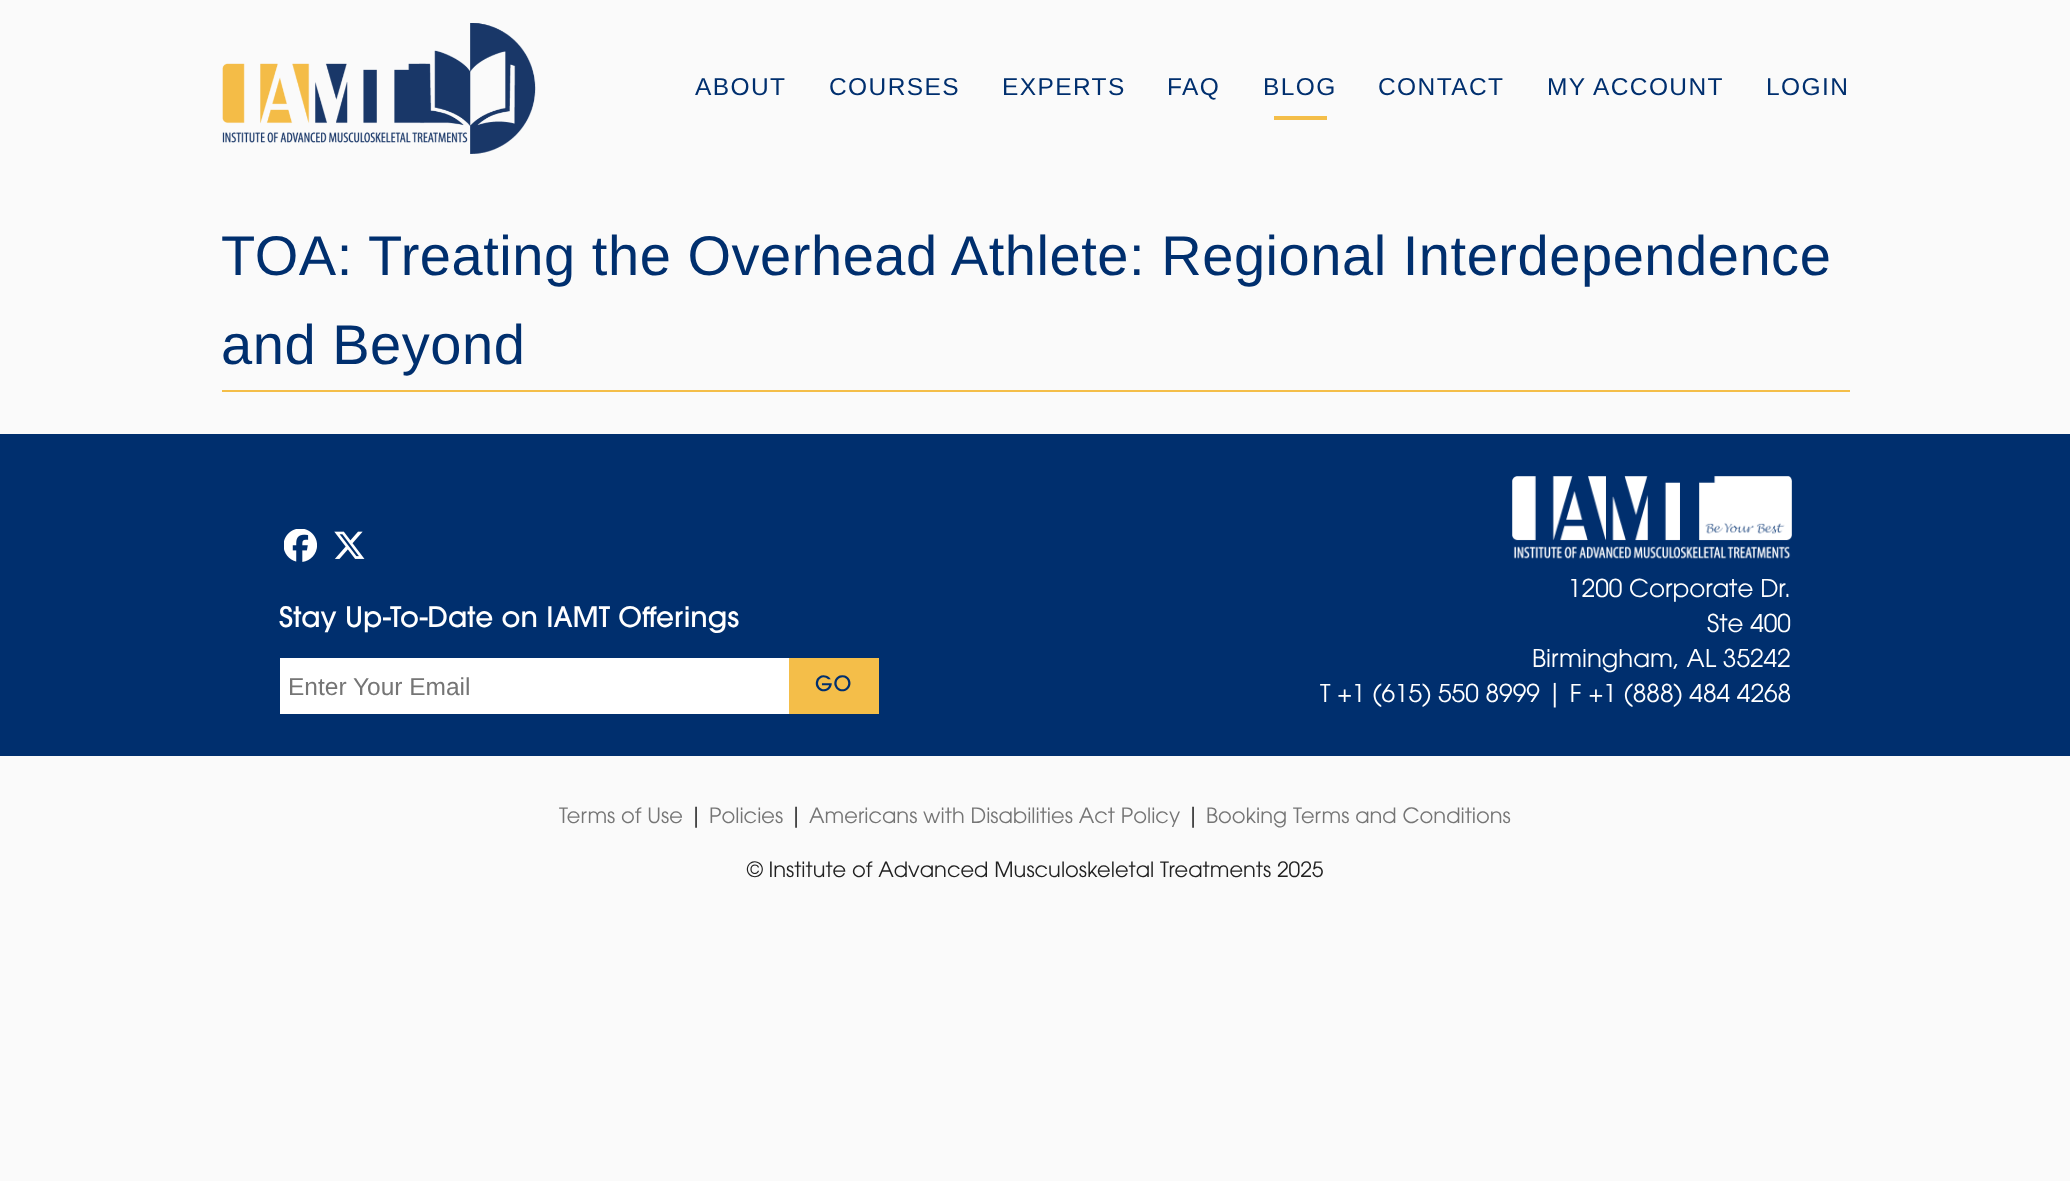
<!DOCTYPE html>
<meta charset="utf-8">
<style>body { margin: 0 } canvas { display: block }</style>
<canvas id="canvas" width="2070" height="1181"></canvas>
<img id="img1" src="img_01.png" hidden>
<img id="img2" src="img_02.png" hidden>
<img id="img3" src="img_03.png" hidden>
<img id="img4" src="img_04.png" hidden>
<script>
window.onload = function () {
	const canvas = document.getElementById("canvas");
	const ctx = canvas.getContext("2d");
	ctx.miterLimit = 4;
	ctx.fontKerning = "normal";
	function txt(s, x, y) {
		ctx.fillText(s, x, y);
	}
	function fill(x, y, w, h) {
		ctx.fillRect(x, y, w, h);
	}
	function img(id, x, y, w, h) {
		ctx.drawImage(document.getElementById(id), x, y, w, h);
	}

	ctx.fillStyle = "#FAFAFA";
	fill(0, 0, 2070, 1181);
	img("img1", 222, 23, 314, 131);
	ctx.fillStyle = "#F4BE49";
	fill(1274, 116, 53, 4);
	fill(222, 390, 1628, 2);
	ctx.fillStyle = "#002F6E";
	fill(0, 434, 2070, 322);
	img("img2", 284, 529, 33, 33);
	img("img3", 334, 531, 31, 28);
	ctx.fillStyle = "#FFFFFF";
	fill(280, 658, 509, 56);
	ctx.fillStyle = "#F4BE49";
	fill(789, 658, 90, 56);
	img("img4", 1512, 476, 280, 83);
	ctx.letterSpacing = "1.4px";
	ctx.font = "24.5px Liberation Sans";
	ctx.fillStyle = "#002F6E";
	txt("ABOUT", 695, 95);
	txt("COURSES", 829, 95);
	txt("EXPERTS", 1002, 95);
	txt("FAQ", 1167, 95);
	txt("BLOG", 1263, 95);
	txt("CONTACT", 1378, 95);
	txt("MY ACCOUNT", 1547, 95);
	txt("LOGIN", 1766, 95);
	ctx.letterSpacing = "0.55px";
	ctx.font = "56px Liberation Sans";
	txt("TOA: Treating the Overhead Athlete: Regional Interdependence", 221, 275);
	txt("and Beyond", 221, 364);
	ctx.letterSpacing = "0px";
	ctx.font = "500 28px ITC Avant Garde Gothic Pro";
	ctx.fillStyle = "#FFFFFF";
	txt("Stay Up-To-Date on IAMT Offerings", 279, 627);
	ctx.font = "24.5px Liberation Sans";
	ctx.fillStyle = "#757575";
	txt("Enter Your Email", 288, 695);
	ctx.letterSpacing = "1px";
	ctx.font = "500 21px ITC Avant Garde Gothic Pro";
	ctx.fillStyle = "#002F6E";
	txt("GO", 815, 691);
	ctx.letterSpacing = "0px";
	ctx.font = "300 24.5px ITC Avant Garde Gothic Pro";
	ctx.fillStyle = "#FFFFFF";
	txt("1200 Corporate Dr.", 1568, 597);
	txt("Ste 400", 1707, 632);
	txt("Birmingham, AL 35242", 1532, 667);
	txt("T +1 (615) 550 8999 | F +1 (888) 484 4268", 1320, 702);
	ctx.font = "300 21px ITC Avant Garde Gothic Pro";
	ctx.fillStyle = "#757575";
	txt("Terms of Use", 559, 823);
	ctx.fillStyle = "#212121";
	txt("|", 689, 823);
	ctx.fillStyle = "#757575";
	txt("Policies", 709, 823);
	ctx.fillStyle = "#212121";
	txt("|", 789, 823);
	ctx.fillStyle = "#757575";
	txt("Americans with Disabilities Act Policy", 809, 823);
	ctx.fillStyle = "#212121";
	txt("|", 1186, 823);
	ctx.fillStyle = "#757575";
	txt("Booking Terms and Conditions", 1206, 823);
	ctx.fillStyle = "#212121";
	txt("© Institute of Advanced Musculoskeletal Treatments 2025", 747, 877);
};
</script>
